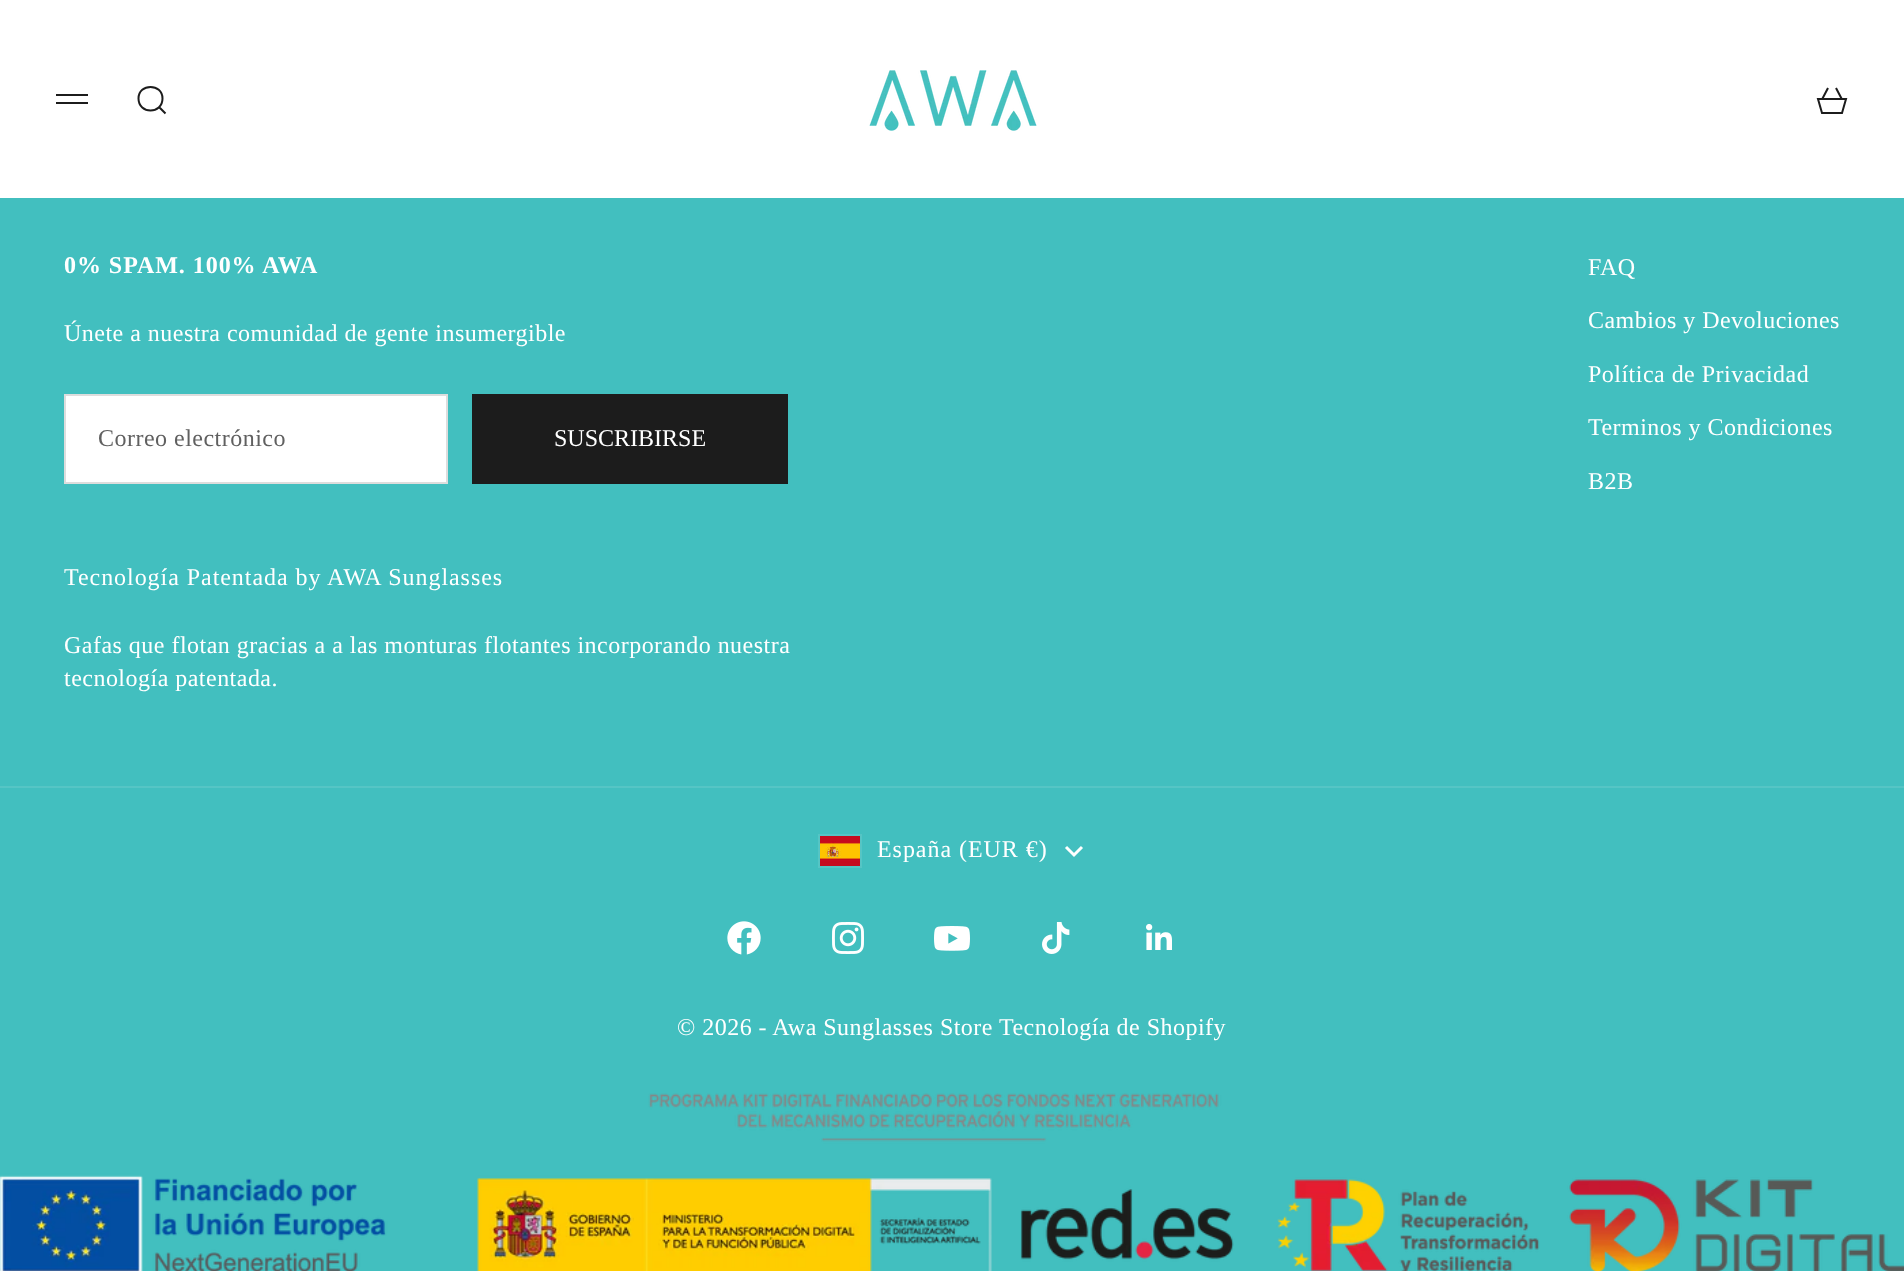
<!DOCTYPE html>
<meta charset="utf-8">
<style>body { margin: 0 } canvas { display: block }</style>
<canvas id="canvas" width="1904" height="1271"></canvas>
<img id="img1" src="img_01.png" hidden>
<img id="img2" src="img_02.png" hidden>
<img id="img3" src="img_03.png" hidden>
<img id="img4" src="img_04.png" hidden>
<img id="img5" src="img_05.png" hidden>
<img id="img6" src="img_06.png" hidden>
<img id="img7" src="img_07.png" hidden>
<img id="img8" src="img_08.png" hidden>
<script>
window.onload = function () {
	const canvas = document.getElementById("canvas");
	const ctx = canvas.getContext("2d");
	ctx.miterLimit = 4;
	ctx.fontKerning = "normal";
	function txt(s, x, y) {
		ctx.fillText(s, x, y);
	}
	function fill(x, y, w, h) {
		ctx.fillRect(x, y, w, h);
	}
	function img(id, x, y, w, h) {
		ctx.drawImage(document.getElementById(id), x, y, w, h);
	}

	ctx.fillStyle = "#42BFBF";
	fill(0, 0, 1904, 1271);
	ctx.fillStyle = "#FFFFFF";
	fill(0, 0, 1904, 198);
	ctx.fillStyle = "#1C1C1C";
	fill(56, 94, 32, 2);
	fill(56, 102, 32, 2);
	ctx.beginPath();
	ctx.moveTo(138.5, 98.5);
	ctx.bezierCurveTo(138.5, 114.5, 162.5, 114.5, 162.5, 98.5);
	ctx.bezierCurveTo(162.5, 83, 138.5, 83, 138.5, 98.5);
	ctx.closePath();
	ctx.moveTo(159, 107);
	ctx.lineTo(165.5, 113.5);
	ctx.strokeStyle = "#1C1C1C";
	ctx.lineWidth = 2;
	ctx.stroke();
	img("img1", 869, 70, 168, 61);
	ctx.beginPath();
	ctx.moveTo(1822, 113);
	ctx.lineTo(1818, 99);
	ctx.lineTo(1846, 99);
	ctx.lineTo(1842, 113);
	ctx.closePath();
	ctx.moveTo(1822.5, 98.5);
	ctx.lineTo(1828, 88);
	ctx.moveTo(1841.5, 98.5);
	ctx.lineTo(1836, 88);
	ctx.stroke();
	ctx.fillStyle = "#FFFFFF";
	ctx.beginPath();
	ctx.rect(65, 395, 382, 88);
	ctx.fill();
	ctx.strokeStyle = "#DDDDDD";
	ctx.stroke();
	ctx.fillStyle = "#1C1C1C";
	fill(472, 394, 316, 90);
	ctx.fillStyle = "#55C5C5";
	fill(0, 786, 1904, 2);
	img("img2", 820, 836, 40, 30);
	ctx.strokeStyle = "#55C5C5";
	ctx.strokeRect(819, 835, 42, 32);
	ctx.beginPath();
	ctx.moveTo(1066, 847);
	ctx.lineTo(1074, 855);
	ctx.lineTo(1082, 847);
	ctx.strokeStyle = "#FFFFFF";
	ctx.lineWidth = 3;
	ctx.stroke();
	img("img3", 727, 921, 34, 34);
	img("img4", 832, 922, 32, 32);
	img("img5", 934, 926, 36, 25);
	img("img6", 1042, 922, 28, 32);
	img("img7", 1146, 923, 26, 27);
	img("img8", 0, 1093, 1904, 178);
	ctx.letterSpacing = "0.95px";
	ctx.font = "bold 24px Liberation Serif";
	ctx.fillStyle = "#FFFFFF";
	txt("0% SPAM. 100% AWA", 64, 273);
	ctx.letterSpacing = "0.48px";
	ctx.font = "24px Liberation Serif";
	txt("Únete a nuestra comunidad de gente insumergible", 64, 341);
	ctx.fillStyle = "#606060";
	txt("Correo electrónico", 98, 446);
	ctx.letterSpacing = "0px";
	ctx.fillStyle = "#FFFFFF";
	txt("SUSCRIBIRSE", 554, 446);
	ctx.letterSpacing = "0.48px";
	txt("FAQ", 1588, 275);
	txt("Cambios y Devoluciones", 1588, 328);
	txt("Política de Privacidad", 1588, 382);
	txt("Terminos y Condiciones", 1588, 435);
	txt("B2B", 1588, 489);
	ctx.letterSpacing = "0.95px";
	txt("Tecnología Patentada by AWA Sunglasses", 64, 585);
	ctx.letterSpacing = "0.48px";
	txt("Gafas que flotan gracias a a las monturas flotantes incorporando nuestra", 64, 653);
	txt("tecnología patentada.", 64, 686);
	ctx.letterSpacing = "0.95px";
	txt("España (EUR €)", 877, 857);
	ctx.letterSpacing = "0.48px";
	txt("© 2026 - Awa Sunglasses Store", 677, 1035);
	txt("Tecnología de Shopify", 999, 1035);
};
</script>
